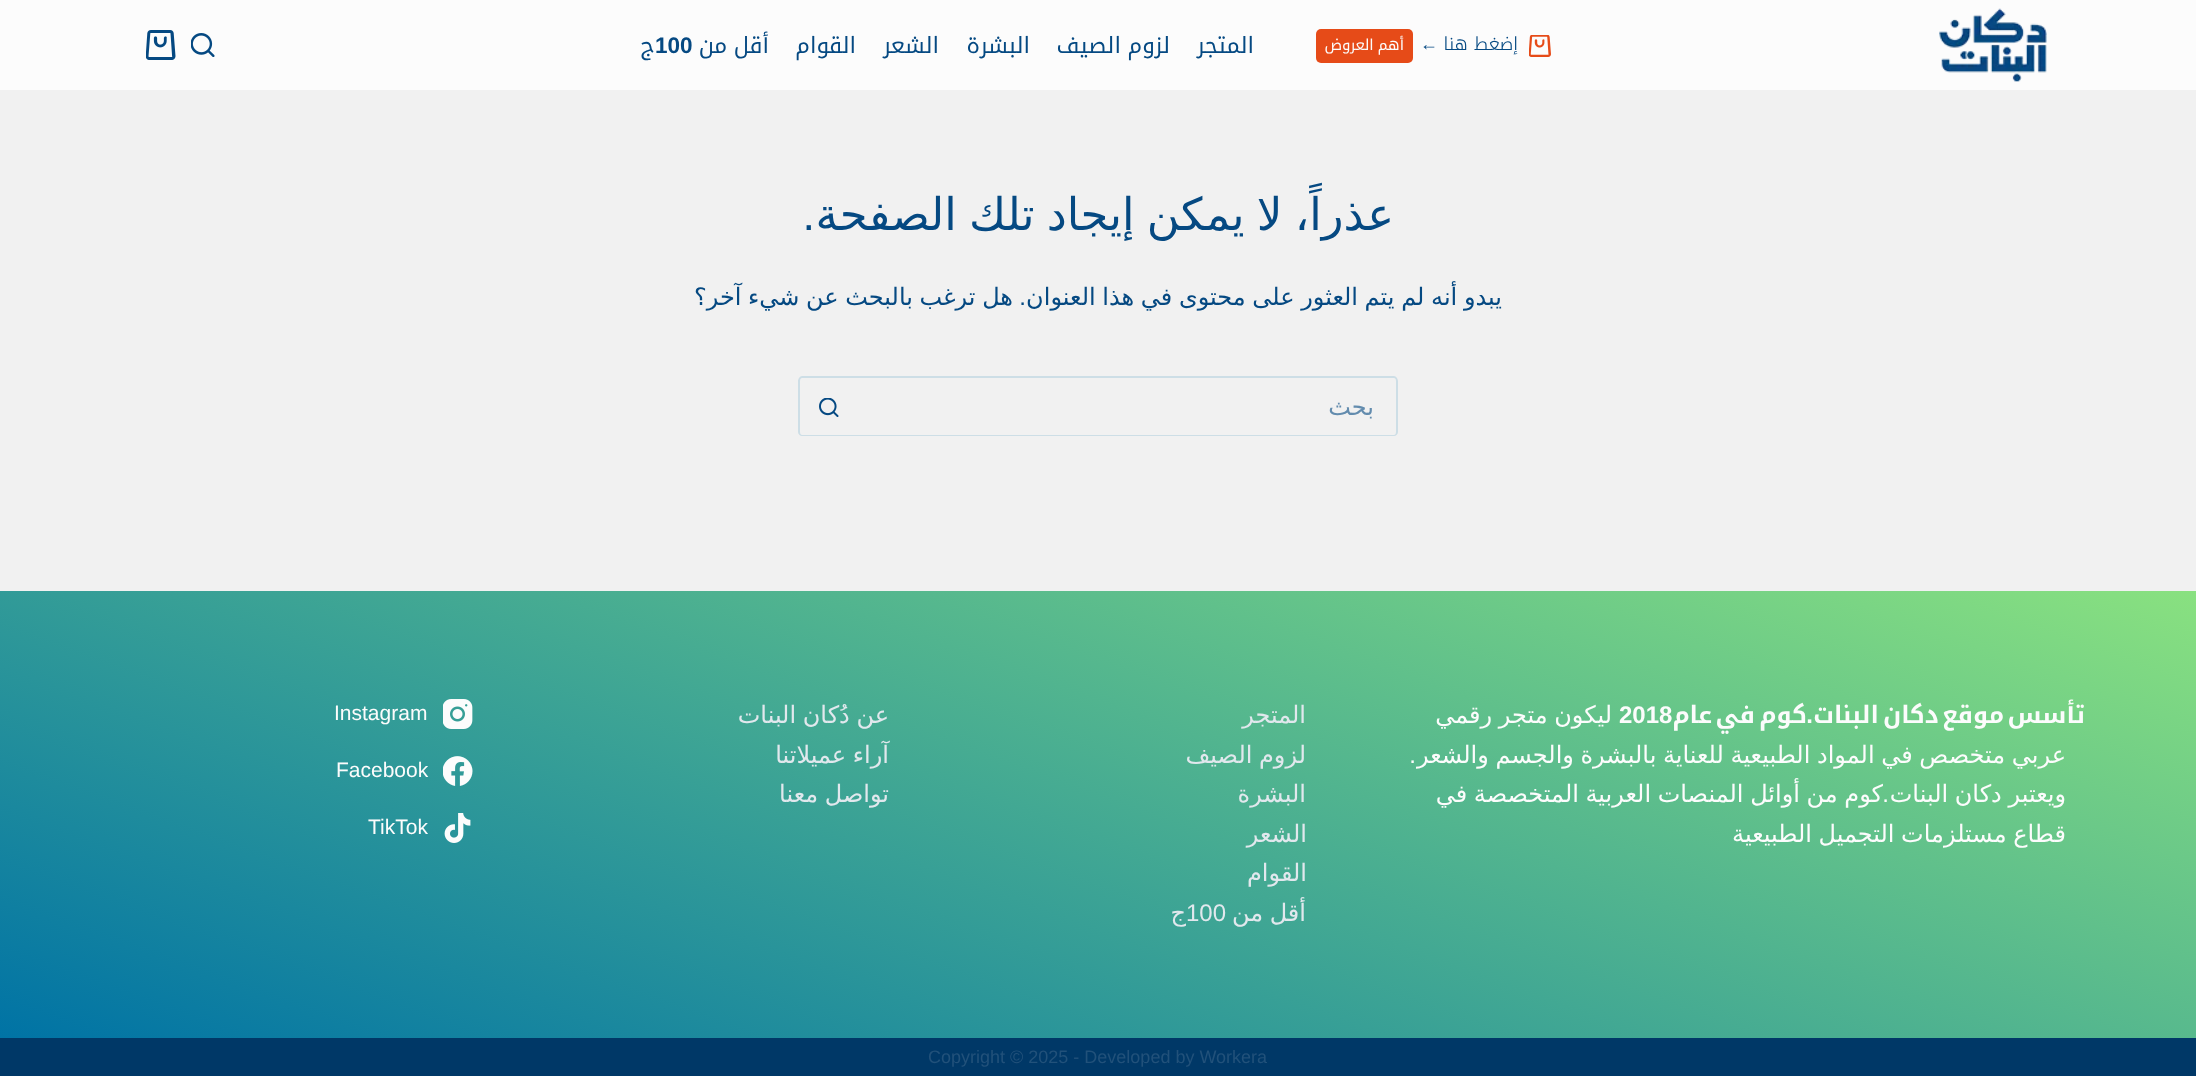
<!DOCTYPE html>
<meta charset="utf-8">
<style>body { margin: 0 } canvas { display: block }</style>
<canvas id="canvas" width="2196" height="1076"></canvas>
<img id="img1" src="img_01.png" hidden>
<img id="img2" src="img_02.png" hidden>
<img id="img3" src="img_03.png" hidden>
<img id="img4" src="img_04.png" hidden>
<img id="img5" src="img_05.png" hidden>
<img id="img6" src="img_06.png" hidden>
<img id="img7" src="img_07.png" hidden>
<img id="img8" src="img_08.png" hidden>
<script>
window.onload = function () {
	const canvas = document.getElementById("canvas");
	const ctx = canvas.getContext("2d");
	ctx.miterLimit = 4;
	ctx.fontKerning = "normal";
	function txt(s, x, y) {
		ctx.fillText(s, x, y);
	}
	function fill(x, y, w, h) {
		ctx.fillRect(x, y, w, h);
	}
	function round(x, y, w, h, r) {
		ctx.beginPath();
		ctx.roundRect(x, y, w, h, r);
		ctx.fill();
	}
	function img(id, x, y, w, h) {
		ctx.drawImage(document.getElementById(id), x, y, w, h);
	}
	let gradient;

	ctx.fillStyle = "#F1F1F1";
	fill(0, 0, 2196, 1076);
	ctx.fillStyle = "#FCFCFC";
	fill(0, 0, 2196, 90);
	img("img1", 1939, 8, 108, 74);
	img("img2", 1529, 35, 22, 22);
	ctx.fillStyle = "#E64B18";
	round(1316, 29, 97, 34, 5);
	img("img3", 191, 33, 24, 24);
	img("img4", 146, 30, 30, 30);
	ctx.fillStyle = "#CDDEE6";
	ctx.beginPath();
	ctx.moveTo(858, 376);
	ctx.lineTo(1394, 376);
	ctx.bezierCurveTo(1396, 376, 1398, 379, 1398, 381);
	ctx.lineTo(1398, 432);
	ctx.bezierCurveTo(1398, 434, 1396, 436, 1394, 436);
	ctx.lineTo(858, 436);
	ctx.closePath();
	ctx.moveTo(858, 378);
	ctx.lineTo(1394, 378);
	ctx.bezierCurveTo(1395, 378, 1396, 379, 1396, 381);
	ctx.lineTo(1396, 432);
	ctx.bezierCurveTo(1396, 434, 1395, 435, 1394, 435);
	ctx.lineTo(858, 435);
	ctx.closePath();
	ctx.fill("evenodd");
	ctx.beginPath();
	ctx.moveTo(802, 376);
	ctx.lineTo(858, 376);
	ctx.lineTo(858, 436);
	ctx.lineTo(802, 436);
	ctx.bezierCurveTo(800, 436, 798, 434, 798, 432);
	ctx.lineTo(798, 381);
	ctx.bezierCurveTo(798, 379, 800, 376, 802, 376);
	ctx.closePath();
	ctx.moveTo(802, 378);
	ctx.lineTo(858, 378);
	ctx.lineTo(858, 435);
	ctx.lineTo(802, 435);
	ctx.bezierCurveTo(801, 435, 800, 434, 800, 432);
	ctx.lineTo(800, 381);
	ctx.bezierCurveTo(800, 379, 801, 378, 802, 378);
	ctx.closePath();
	ctx.fill("evenodd");
	img("img5", 819, 398, 20, 19);
	gradient = ctx.createLinearGradient(898, 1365, 1298, 264);
	gradient.addColorStop(0, "#0073A5");
	gradient.addColorStop(1, "#89E180");
	ctx.fillStyle = gradient;
	fill(0, 591, 2196, 447);
	img("img6", 443, 699, 30, 30);
	img("img7", 443, 756, 30, 30);
	img("img8", 444, 813, 27, 30);
	ctx.fillStyle = "#003867";
	fill(0, 1038, 2196, 38);
	ctx.direction = "rtl";
	ctx.font = "300 18px Noto Kufi Arabic";
	ctx.fillStyle = "#054982";
	txt("إضغط هنا", 1518, 50);
	ctx.font = "bold 18px Liberation Sans";
	txt("←", 1438, 50);
	ctx.wordSpacing = "-1px";
	ctx.font = "15px Noto Kufi Arabic";
	ctx.fillStyle = "#FCFCFC";
	txt("أهم العروض", 1404, 50);
	ctx.wordSpacing = "0px";
	ctx.font = "22.5px Noto Kufi Arabic";
	ctx.fillStyle = "#054982";
	txt("المتجر", 1254, 53);
	ctx.wordSpacing = "-1px";
	txt("لزوم الصيف", 1170, 53);
	ctx.wordSpacing = "0px";
	txt("البشرة", 1030, 53);
	txt("الشعر", 939, 53);
	txt("القوام", 856, 53);
	ctx.wordSpacing = "-1px";
	txt("أقل من", 769, 53);
	ctx.wordSpacing = "0px";
	ctx.direction = "ltr";
	ctx.font = "bold 22.5px Liberation Sans";
	txt("100", 655, 53);
	ctx.direction = "rtl";
	ctx.font = "22.5px Noto Kufi Arabic";
	txt("ج", 655, 53);
	ctx.wordSpacing = "-2px";
	ctx.font = "45px DejaVu Sans";
	txt("عذراً، لا يمكن إيجاد تلك الصفحة", 1394, 230);
	ctx.wordSpacing = "0px";
	ctx.font = "45px Liberation Sans";
	txt(".", 815, 230);
	ctx.wordSpacing = "-1px";
	ctx.font = "24px DejaVu Sans";
	txt("يبدو أنه لم يتم العثور على محتوى في هذا العنوان", 1502, 305);
	ctx.wordSpacing = "0px";
	ctx.font = "24px Liberation Sans";
	txt(".", 1026, 305);
	ctx.wordSpacing = "-1px";
	ctx.font = "24px DejaVu Sans";
	txt("هل ترغب بالبحث عن شيء آخر؟", 1013, 305);
	ctx.wordSpacing = "0px";
	ctx.fillStyle = "#638CAE";
	txt("بحث", 1374, 415);
	ctx.font = "bold 24px Noto Kufi Arabic";
	ctx.fillStyle = "#FCFCFC";
	txt("تأسس", 2085, 723);
	txt("موقع", 2004, 723);
	txt("دكان", 1939, 723);
	txt("البنات", 1879, 723);
	ctx.font = "bold 24px Liberation Sans";
	txt(".", 1813, 723);
	ctx.font = "bold 24px Noto Kufi Arabic";
	txt("كوم", 1807, 723);
	txt("في", 1755, 723);
	txt("عام", 1712, 723);
	ctx.direction = "ltr";
	ctx.font = "bold 24px Liberation Sans";
	txt("2018", 1619, 723);
	ctx.wordSpacing = "-1px";
	ctx.direction = "rtl";
	ctx.font = "24px DejaVu Sans";
	txt("ليكون متجر رقمي", 1612, 723);
	txt("عربي متخصص في المواد الطبيعية للعناية بالبشرة والجسم والشعر", 2066, 763);
	ctx.wordSpacing = "0px";
	ctx.font = "24px Liberation Sans";
	txt(".", 1416, 763);
	ctx.wordSpacing = "-1px";
	ctx.font = "24px DejaVu Sans";
	txt("ويعتبر دكان البنات", 2066, 802);
	ctx.wordSpacing = "0px";
	ctx.font = "24px Liberation Sans";
	txt(".", 1889, 802);
	ctx.wordSpacing = "-1px";
	ctx.font = "24px DejaVu Sans";
	txt("كوم من أوائل المنصات العربية المتخصصة في", 1883, 802);
	txt("قطاع مستلزمات التجميل الطبيعية", 2066, 842);
	ctx.wordSpacing = "0px";
	ctx.fillStyle = "#E1E8ED";
	txt("المتجر", 1306, 723);
	ctx.wordSpacing = "-1px";
	txt("لزوم الصيف", 1306, 763);
	ctx.wordSpacing = "0px";
	txt("البشرة", 1306, 802);
	txt("الشعر", 1307, 842);
	txt("القوام", 1307, 881);
	ctx.wordSpacing = "-1px";
	txt("أقل من", 1306, 921);
	ctx.wordSpacing = "0px";
	ctx.direction = "ltr";
	ctx.font = "24px Liberation Sans";
	txt("100", 1186, 921);
	ctx.direction = "rtl";
	ctx.font = "24px DejaVu Sans";
	txt("ج", 1186, 921);
	ctx.wordSpacing = "-1px";
	txt("عن دُكان البنات", 889, 723);
	txt("آراء عميلاتنا", 889, 763);
	txt("تواصل معنا", 889, 802);
	ctx.wordSpacing = "0px";
	ctx.direction = "ltr";
	ctx.font = "21px Liberation Sans";
	ctx.fillStyle = "#FCFCFC";
	txt("Instagram", 334, 720);
	txt("Facebook", 336, 777);
	txt("TikTok", 368, 834);
	ctx.font = "18px Liberation Sans";
	ctx.fillStyle = "#21517A";
	txt("Copyright © 2025 - Developed by Workera", 928, 1063);
};
</script>
